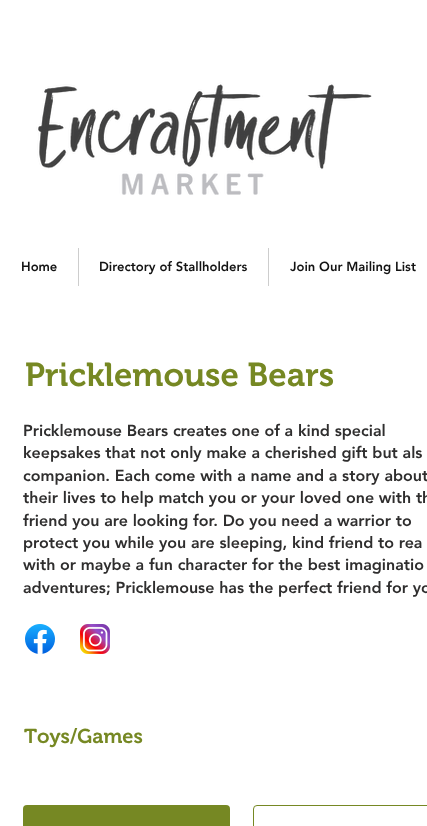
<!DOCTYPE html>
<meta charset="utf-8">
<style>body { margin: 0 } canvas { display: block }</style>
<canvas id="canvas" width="427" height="826"></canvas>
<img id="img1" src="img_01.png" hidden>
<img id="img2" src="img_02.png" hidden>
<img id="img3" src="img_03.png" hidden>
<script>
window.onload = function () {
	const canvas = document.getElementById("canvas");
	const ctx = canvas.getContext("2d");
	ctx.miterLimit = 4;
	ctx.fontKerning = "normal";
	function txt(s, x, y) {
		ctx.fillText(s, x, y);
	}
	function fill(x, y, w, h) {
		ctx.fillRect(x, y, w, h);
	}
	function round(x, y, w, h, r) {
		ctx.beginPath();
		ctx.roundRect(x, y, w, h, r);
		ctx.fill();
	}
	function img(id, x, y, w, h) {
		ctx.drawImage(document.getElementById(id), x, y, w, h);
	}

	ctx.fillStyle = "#FFFFFF";
	fill(0, 0, 427, 826);
	img("img1", 36, 82, 336, 113);
	ctx.fillStyle = "#CDCDCD";
	fill(78, 248, 1, 38);
	fill(268, 248, 1, 38);
	img("img2", 25, 624, 30, 30);
	img("img3", 80, 624, 30, 30);
	ctx.fillStyle = "#768823";
	round(23, 805, 207, 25, 4);
	ctx.beginPath();
	ctx.roundRect(253.5, 805.5, 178, 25, 3.5);
	ctx.strokeStyle = "#768823";
	ctx.stroke();
	ctx.font = "900 13px 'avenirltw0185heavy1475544'";
	ctx.fillStyle = "#131313";
	txt("Home", 21, 271);
	txt("Directory of Stallholders", 99, 271);
	txt("Join Our Mailing List", 290, 271);
	ctx.font = "600 33px 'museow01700'";
	ctx.fillStyle = "#768823";
	txt("Pricklemouse Bears", 25, 386);
	ctx.font = "900 16px 'avenirltw0185heavy1475544'";
	ctx.fillStyle = "#2F2E2E";
	txt("Pricklemouse Bears creates one of a kind special", 23, 436);
	txt("keepsakes that not only make a cherished gift but als", 23, 458);
	txt("companion. Each come with a name and a story about", 23, 481);
	txt("their lives to help match you or your loved one with th", 23, 503);
	txt("friend you are looking for. Do you need a warrior to", 23, 526);
	txt("protect you while you are sleeping, kind friend to rea", 23, 548);
	txt("with or maybe a fun character for the best imaginatio", 23, 570);
	txt("adventures; Pricklemouse has the perfect friend for yo", 23, 593);
	ctx.font = "600 20px 'museow01700'";
	ctx.fillStyle = "#768823";
	txt("Toys/Games", 24, 743);
};
</script>
